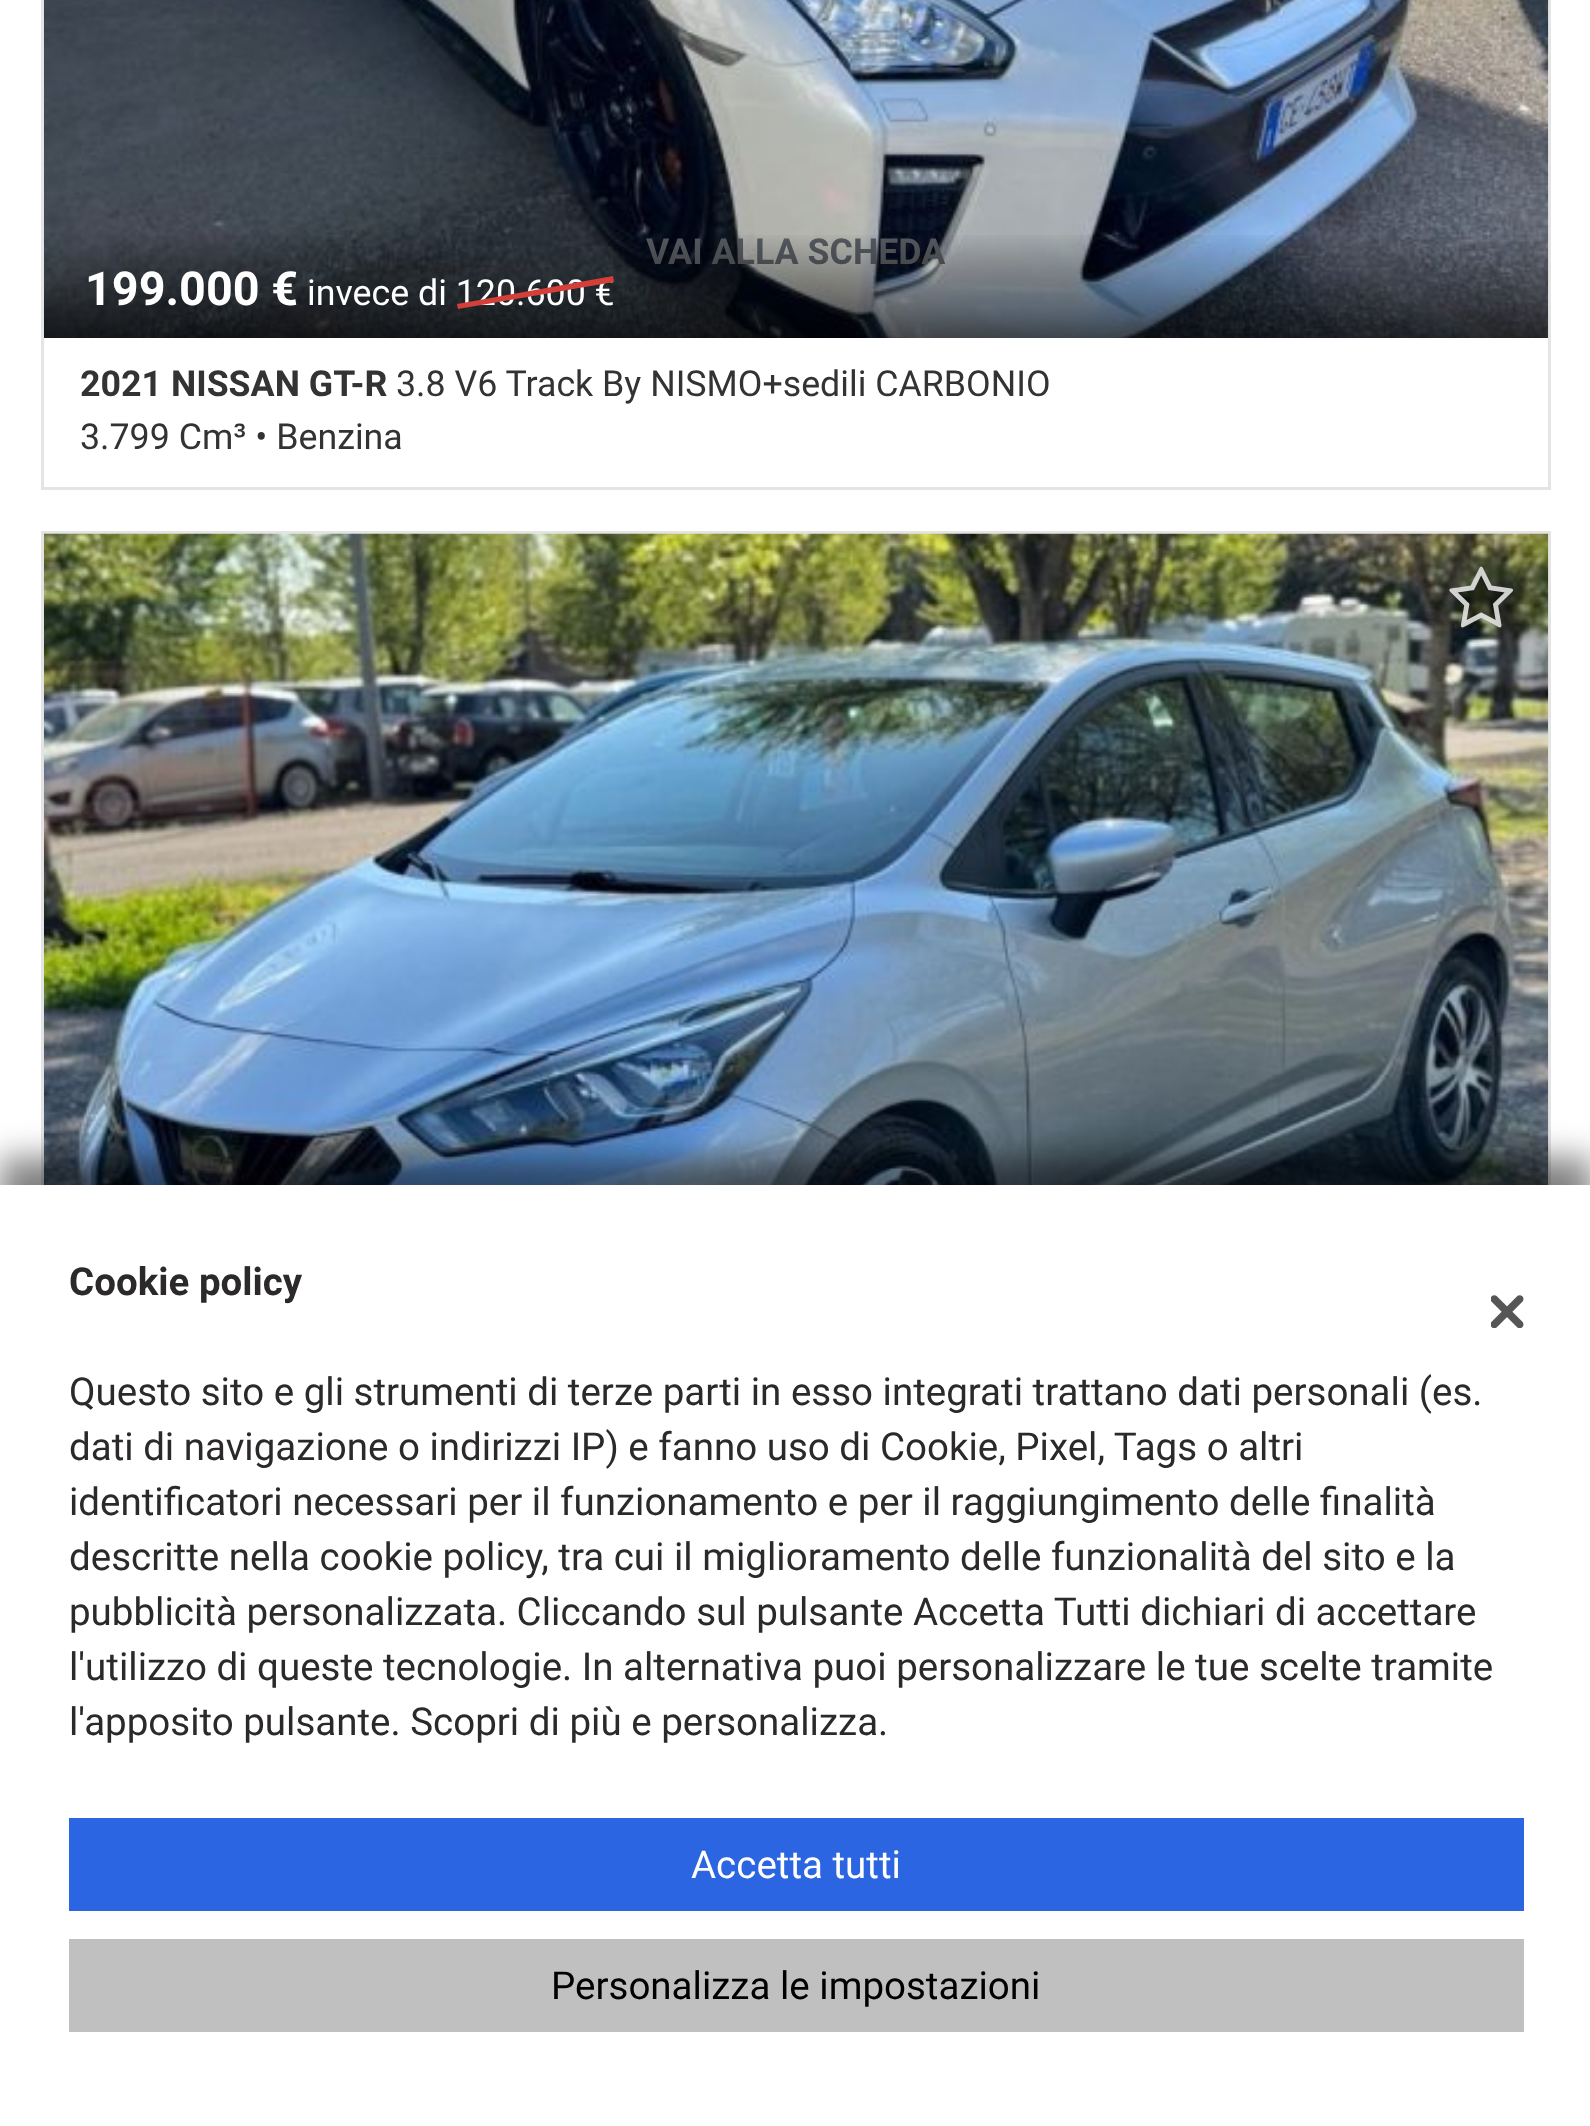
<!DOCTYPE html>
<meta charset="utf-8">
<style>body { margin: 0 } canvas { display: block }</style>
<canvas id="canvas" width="1590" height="2126"></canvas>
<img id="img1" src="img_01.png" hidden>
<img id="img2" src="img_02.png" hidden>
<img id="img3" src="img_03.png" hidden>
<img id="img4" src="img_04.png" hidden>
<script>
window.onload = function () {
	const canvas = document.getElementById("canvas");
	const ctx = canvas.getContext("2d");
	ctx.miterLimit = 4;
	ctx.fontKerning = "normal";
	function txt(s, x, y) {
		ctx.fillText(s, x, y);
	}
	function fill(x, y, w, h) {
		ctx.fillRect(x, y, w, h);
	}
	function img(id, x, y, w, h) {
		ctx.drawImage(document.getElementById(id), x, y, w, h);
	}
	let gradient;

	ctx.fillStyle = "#FFFFFF";
	fill(0, 0, 1590, 2126);
	ctx.strokeStyle = "#E4E4E4";
	ctx.lineWidth = 3;
	ctx.strokeRect(42.5, -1.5, 1507, 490);
	img("img1", 44, 0, 1505, 338);
	ctx.strokeRect(42.5, 532.5, 1507, 1045);
	img("img2", 44, 533, 1505, 652);
	ctx.fillStyle = "rgba(0, 0, 0, 0.55)";
	ctx.beginPath();
	ctx.moveTo(1513, 590);
	ctx.bezierCurveTo(1513, 592, 1500, 603, 1498, 606);
	ctx.bezierCurveTo(1503, 633, 1507, 631, 1481, 618);
	ctx.bezierCurveTo(1455, 631, 1459, 633, 1464, 606);
	ctx.bezierCurveTo(1444, 586, 1442, 590, 1471, 586);
	ctx.bezierCurveTo(1483, 560, 1479, 560, 1492, 586);
	ctx.bezierCurveTo(1495, 586, 1513, 587, 1513, 590);
	ctx.closePath();
	ctx.fill();
	img("img3", 1449, 566, 64, 62);
	ctx.fillStyle = "rgba(0, 0, 0, 0.5)";
	ctx.filter = "blur(16.5px)";
	ctx.beginPath();
	ctx.rect(0, 1158, 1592, 943);
	ctx.fill();
	ctx.filter = "none";
	ctx.fillStyle = "#FFFFFF";
	fill(0, 1185, 1590, 941);
	img("img4", 1491, 1295, 33, 33);
	ctx.fillStyle = "#2C65E1";
	fill(69, 1818, 1455, 93);
	ctx.fillStyle = "#C0C0C0";
	fill(69, 1939, 1455, 93);
	ctx.font = "bold 35.75px Roboto";
	ctx.fillStyle = "#575B61";
	txt("VAI ALLA SCHEDA", 646, 264);
	gradient = ctx.createLinearGradient(796, 231, 796, 338);
	gradient.addColorStop(0, "rgba(0, 0, 0, 0)");
	gradient.addColorStop(1, "rgba(0, 0, 0, 0.65)");
	ctx.fillStyle = gradient;
	fill(44, 235, 1504, 103);
	ctx.font = "bold 46.75px Roboto";
	ctx.fillStyle = "#FFFFFF";
	txt("199.000 €", 85, 305);
	ctx.font = "35.75px Roboto";
	txt("invece di 120.600 €", 307, 305);
	ctx.fillStyle = "#D43F3A";
	ctx.beginPath();
	ctx.moveTo(457, 304);
	ctx.lineTo(613, 276);
	ctx.lineTo(614, 282);
	ctx.lineTo(458, 309);
	ctx.closePath();
	ctx.fill();
	ctx.font = "bold 35.75px Roboto";
	ctx.fillStyle = "#333333";
	txt("2021 NISSAN GT-R", 80, 396);
	ctx.font = "35.75px Roboto";
	txt("3.8 V6 Track By NISMO+sedili CARBONIO", 396, 396);
	txt("3.799 Cm³ • Benzina", 80, 449);
	ctx.font = "bold 38.5px Roboto";
	ctx.fillStyle = "#2B2929";
	txt("Cookie policy", 69, 1295);
	ctx.font = "38.5px Roboto";
	txt("Questo sito e gli strumenti di terze parti in esso integrati trattano dati personali (es.", 69, 1405);
	txt("dati di navigazione o indirizzi IP) e fanno uso di Cookie, Pixel, Tags o altri", 69, 1460);
	txt("identificatori necessari per il funzionamento e per il raggiungimento delle finalità", 69, 1515);
	txt("descritte nella cookie policy, tra cui il miglioramento delle funzionalità del sito e la", 69, 1570);
	txt("pubblicità personalizzata. Cliccando sul pulsante Accetta Tutti dichiari di accettare", 69, 1625);
	txt("l'utilizzo di queste tecnologie. In alternativa puoi personalizzare le tue scelte tramite", 69, 1680);
	txt("l'apposito pulsante. Scopri di più e personalizza.", 69, 1735);
	ctx.fillStyle = "#FFFFFF";
	txt("Accetta tutti", 691, 1878);
	ctx.fillStyle = "#000000";
	txt("Personalizza le impostazioni", 551, 1999);
};
</script>
